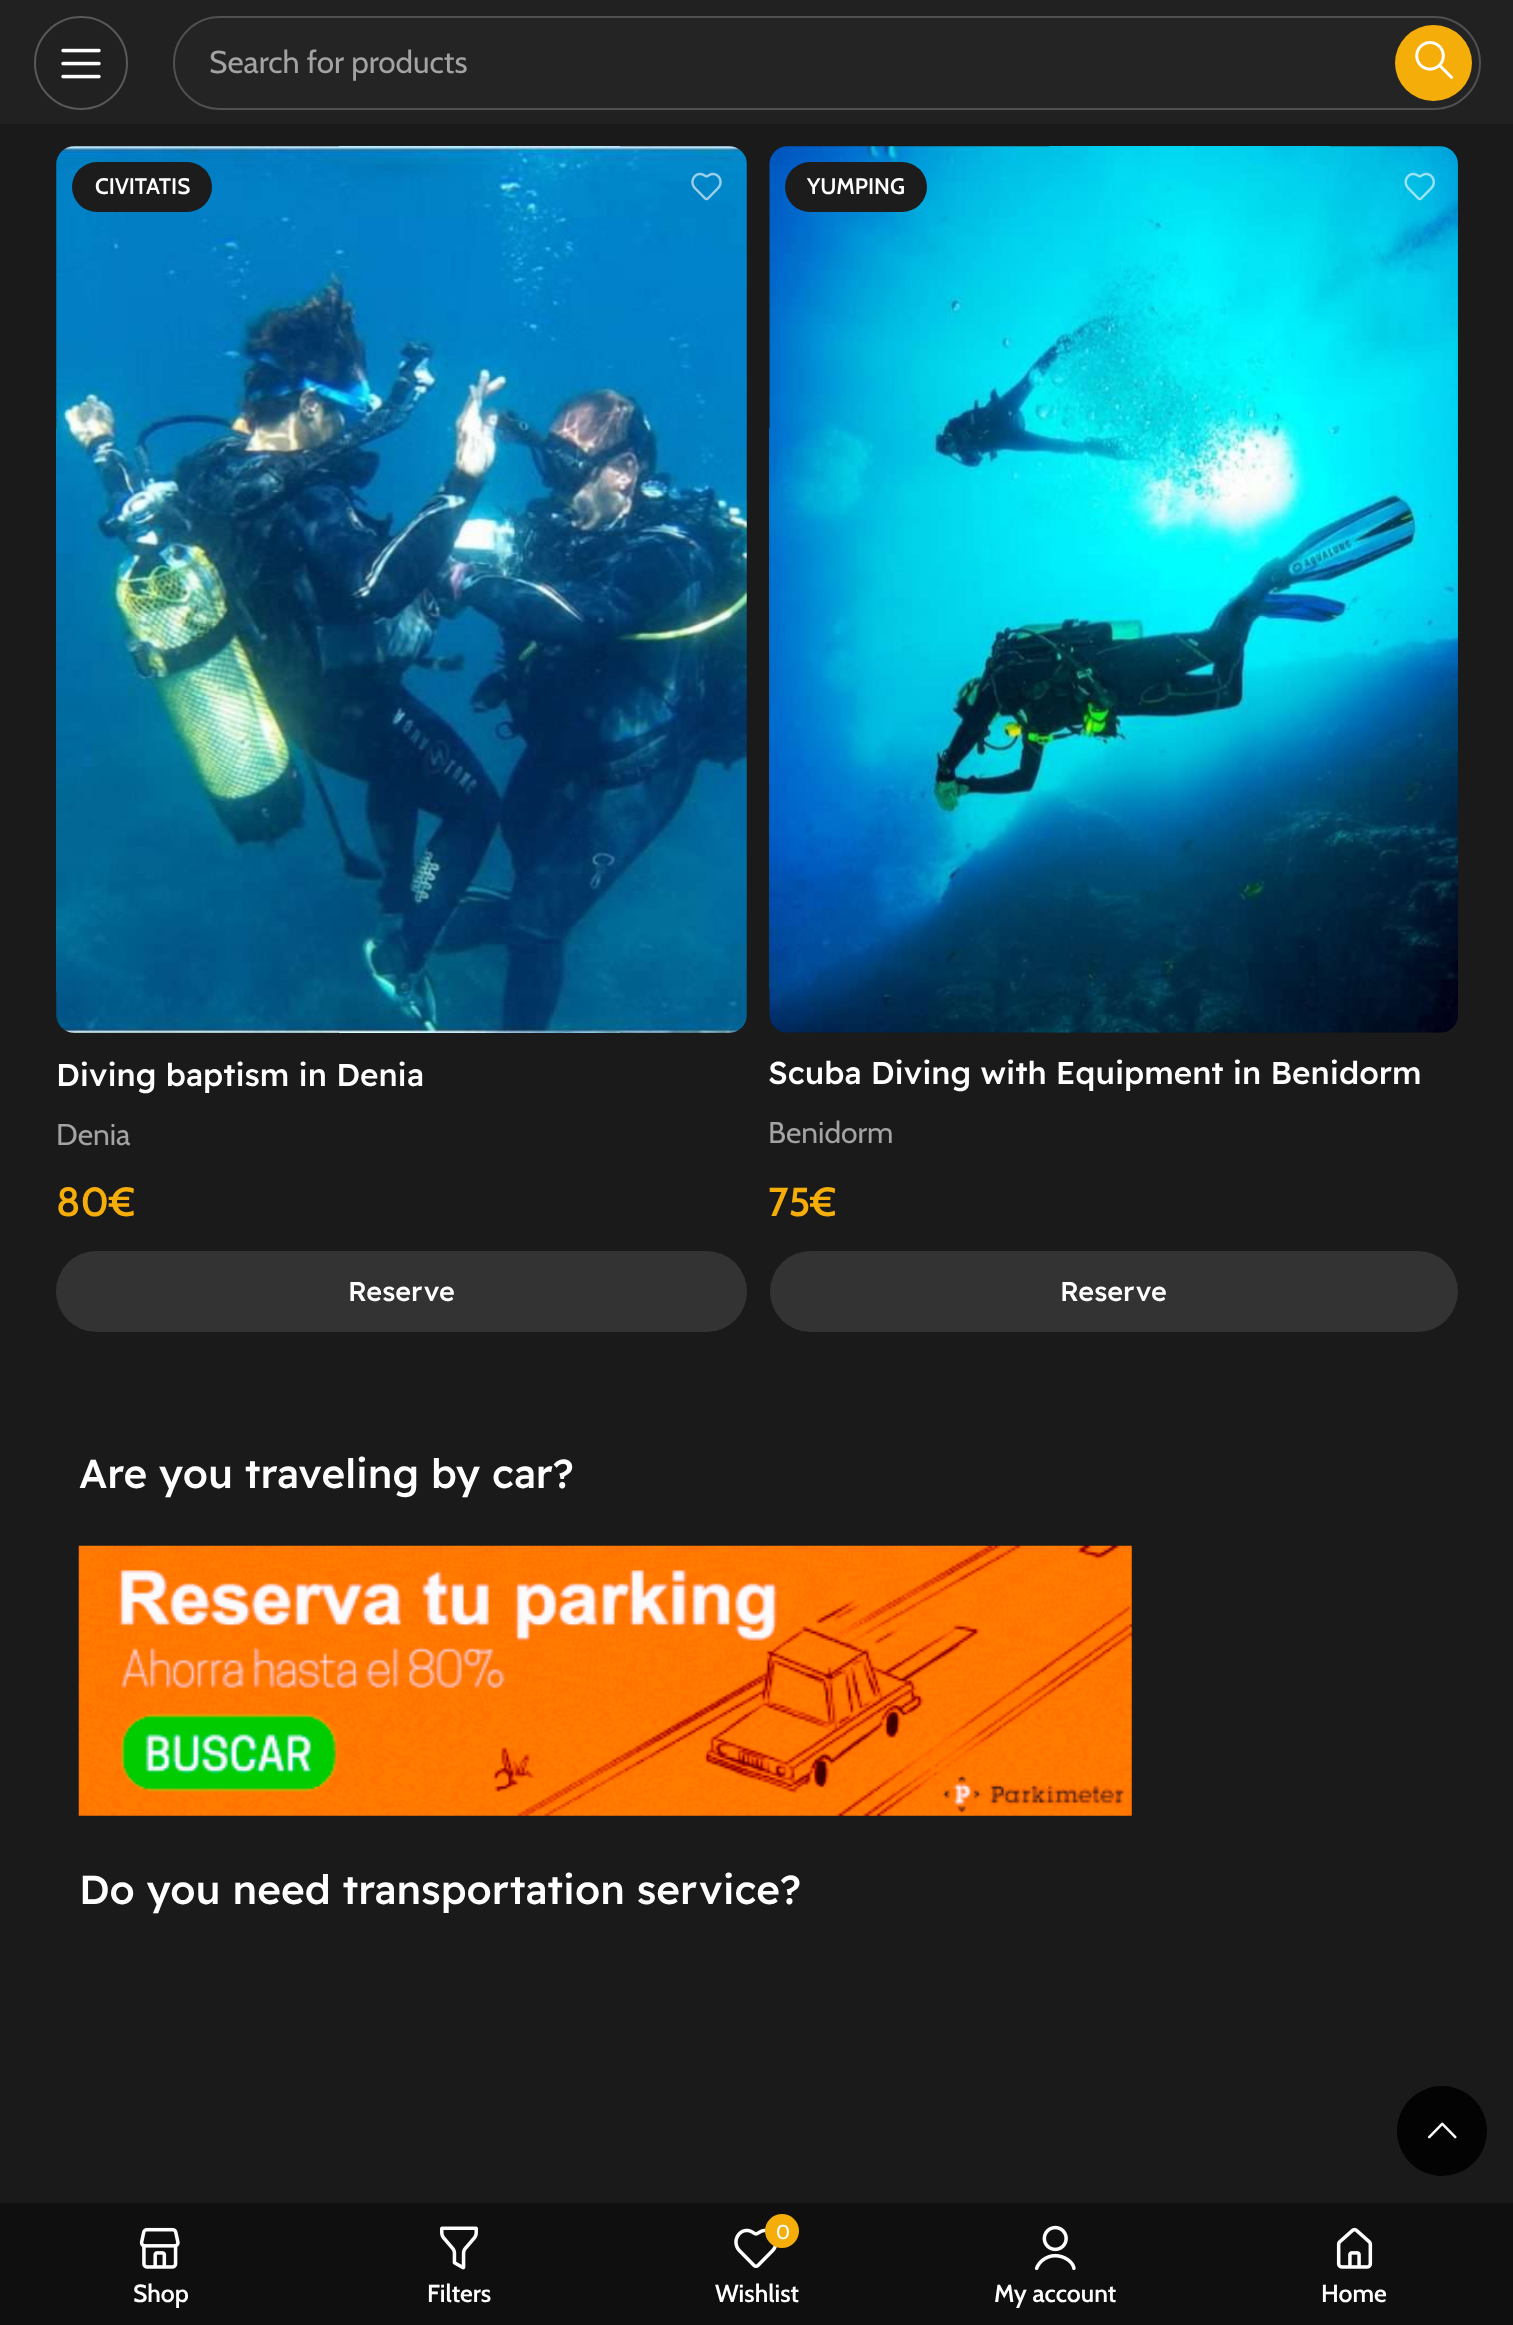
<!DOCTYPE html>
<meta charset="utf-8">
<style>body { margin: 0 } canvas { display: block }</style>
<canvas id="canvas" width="1513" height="2325"></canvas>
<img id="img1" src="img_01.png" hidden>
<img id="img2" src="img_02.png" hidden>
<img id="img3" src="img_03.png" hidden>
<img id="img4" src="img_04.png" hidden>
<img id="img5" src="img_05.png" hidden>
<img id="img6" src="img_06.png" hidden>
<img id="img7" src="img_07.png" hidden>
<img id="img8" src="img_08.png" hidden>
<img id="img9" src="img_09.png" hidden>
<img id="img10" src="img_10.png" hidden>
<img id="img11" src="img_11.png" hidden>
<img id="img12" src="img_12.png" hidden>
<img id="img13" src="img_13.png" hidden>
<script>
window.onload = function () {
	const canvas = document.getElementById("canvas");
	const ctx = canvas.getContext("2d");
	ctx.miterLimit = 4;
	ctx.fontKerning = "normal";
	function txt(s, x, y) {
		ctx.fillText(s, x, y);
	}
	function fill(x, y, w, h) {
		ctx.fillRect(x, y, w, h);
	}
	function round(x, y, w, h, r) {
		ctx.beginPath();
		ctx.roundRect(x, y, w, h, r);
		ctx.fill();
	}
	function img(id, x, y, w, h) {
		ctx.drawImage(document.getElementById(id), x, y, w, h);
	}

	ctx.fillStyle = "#1A1A1A";
	fill(0, 0, 1513, 2325);
	ctx.fillStyle = "#212121";
	fill(0, 0, 1513, 124);
	ctx.beginPath();
	ctx.arc(81, 63, 46, 0, Math.PI * 2);
	ctx.strokeStyle = "#595959";
	ctx.lineWidth = 2;
	ctx.stroke();
	img("img1", 61, 48, 40, 31);
	ctx.fillStyle = "#242424";
	ctx.beginPath();
	ctx.roundRect(174, 17, 1306, 92, 46);
	ctx.fill();
	ctx.strokeStyle = "#505050";
	ctx.stroke();
	ctx.fillStyle = "#F5AD09";
	round(1395, 25, 77, 76, 38);
	img("img2", 1415, 41, 38, 38);
	img("img3", 56, 146, 691, 887);
	ctx.fillStyle = "#1C1C1C";
	round(72, 162, 140, 50, 25);
	img("img4", 691, 172, 31, 29);
	ctx.fillStyle = "#333333";
	round(56, 1251, 691, 81, 40.5);
	img("img5", 769, 146, 689, 887);
	ctx.fillStyle = "#1C1C1C";
	round(785, 162, 142, 50, 25);
	img("img6", 1404, 172, 31, 29);
	ctx.fillStyle = "#333333";
	round(770, 1251, 688, 81, 40.5);
	img("img7", 78, 1545, 1054, 271);
	ctx.fillStyle = "#030303";
	ctx.beginPath();
	ctx.arc(1442, 2131, 45, 0, Math.PI * 2);
	ctx.fill();
	img("img8", 1428, 2122, 29, 17);
	ctx.fillStyle = "#0F0F0F";
	fill(0, 2203, 1513, 122);
	img("img9", 139, 2227, 41, 42);
	img("img10", 440, 2226, 38, 44);
	img("img11", 734, 2228, 43, 40);
	ctx.fillStyle = "#F5AD09";
	ctx.beginPath();
	ctx.arc(782, 2231, 17, 0, Math.PI * 2);
	ctx.fill();
	img("img12", 1034, 2225, 42, 46);
	img("img13", 1336, 2227, 37, 42);
	ctx.font = "31.5px Cabin";
	ctx.fillStyle = "#A3A3A3";
	txt("Search for products", 209, 73);
	ctx.font = "600 22.5px Cabin";
	ctx.fillStyle = "#FFFFFF";
	txt("CIVITATIS", 95, 194);
	ctx.font = "500 31.5px Readex Pro";
	txt("Diving baptism in Denia", 56, 1086);
	ctx.font = "30px Cabin";
	ctx.fillStyle = "#A3A3A3";
	txt("Denia", 56, 1145);
	ctx.font = "600 40.5px Cabin";
	ctx.fillStyle = "#F5AD09";
	txt("80€", 56, 1216);
	ctx.font = "500 27px Readex Pro";
	ctx.fillStyle = "#FFFFFF";
	txt("Reserve", 348, 1301);
	ctx.font = "600 22.5px Cabin";
	txt("YUMPING", 807, 194);
	ctx.font = "500 31.5px Readex Pro";
	txt("Scuba Diving with Equipment in Benidorm", 768, 1084);
	ctx.font = "30px Cabin";
	ctx.fillStyle = "#A3A3A3";
	txt("Benidorm", 768, 1143);
	ctx.font = "600 40.5px Cabin";
	ctx.fillStyle = "#F5AD09";
	txt("75€", 768, 1216);
	ctx.font = "500 27px Readex Pro";
	ctx.fillStyle = "#FFFFFF";
	txt("Reserve", 1060, 1301);
	ctx.font = "500 40.5px Readex Pro";
	txt("Are you traveling by car?", 79, 1488);
	txt("Do you need transportation service?", 79, 1904);
	ctx.font = "600 24.75px Cabin";
	txt("Shop", 133, 2302);
	txt("Filters", 427, 2302);
	ctx.font = "20px Cabin";
	txt("0", 776, 2239);
	ctx.font = "600 24.75px Cabin";
	txt("Wishlist", 715, 2302);
	txt("My account", 994, 2302);
	txt("Home", 1321, 2302);
};
</script>
